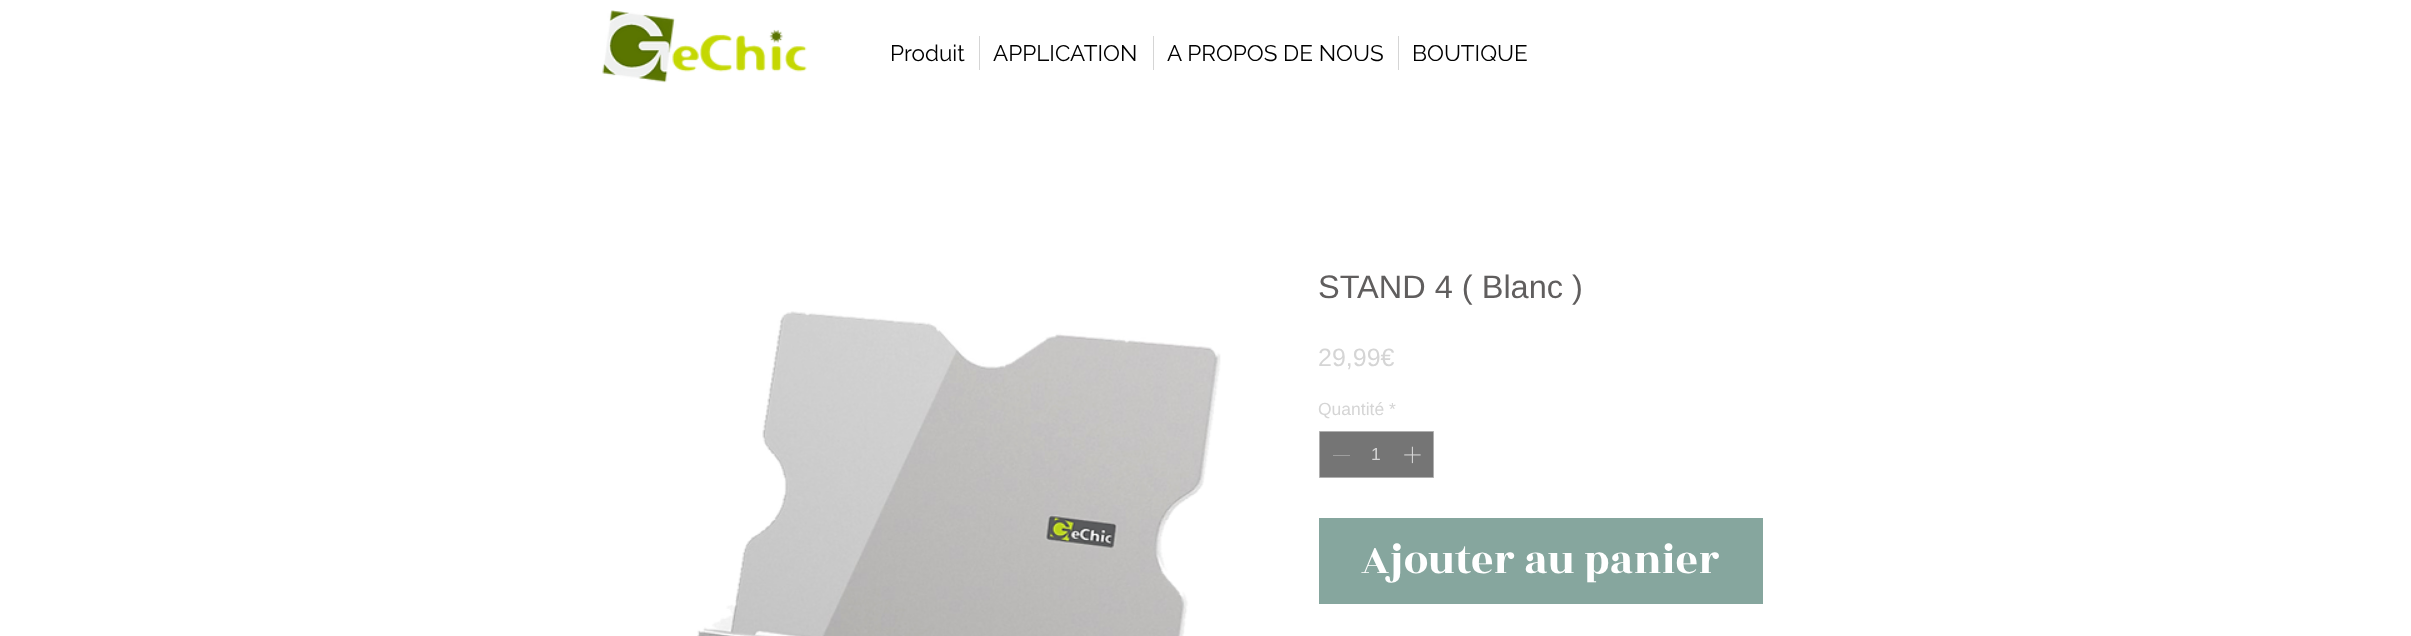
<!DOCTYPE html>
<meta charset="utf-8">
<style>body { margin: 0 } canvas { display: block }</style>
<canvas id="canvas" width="2411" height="636"></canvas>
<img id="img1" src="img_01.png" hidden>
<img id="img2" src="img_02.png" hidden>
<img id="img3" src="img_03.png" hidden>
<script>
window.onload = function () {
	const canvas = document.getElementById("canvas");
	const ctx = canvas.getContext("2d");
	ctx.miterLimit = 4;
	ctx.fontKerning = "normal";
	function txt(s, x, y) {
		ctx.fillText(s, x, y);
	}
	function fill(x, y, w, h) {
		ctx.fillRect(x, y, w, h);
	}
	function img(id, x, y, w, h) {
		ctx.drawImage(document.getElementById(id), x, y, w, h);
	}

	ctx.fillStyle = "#FFFFFF";
	fill(0, 0, 2411, 636);
	img("img1", 602, 10, 205, 73);
	ctx.fillStyle = "#D5D5D5";
	fill(979, 36, 1, 34);
	fill(1153, 36, 1, 34);
	fill(1398, 36, 1, 34);
	img("img2", 697, 311, 524, 325);
	ctx.fillStyle = "#757575";
	ctx.beginPath();
	ctx.rect(1319.5, 431.5, 114, 46);
	ctx.fill();
	ctx.strokeStyle = "#AFAFAF";
	ctx.stroke();
	ctx.fillStyle = "#9E9E9E";
	fill(1333, 455, 17, 1);
	img("img3", 1404, 446, 17, 18);
	ctx.fillStyle = "#86A69E";
	fill(1319, 518, 444, 86);
	ctx.font = "22.5px Raleway";
	ctx.fillStyle = "#000000";
	txt("Produit", 890, 61);
	txt("APPLICATION", 993, 61);
	txt("A PROPOS DE NOUS", 1167, 61);
	txt("BOUTIQUE", 1412, 61);
	ctx.font = "32.5px Liberation Sans";
	ctx.fillStyle = "#605E5E";
	txt("STAND 4 ( Blanc )", 1318, 298);
	ctx.font = "25px Liberation Sans";
	ctx.fillStyle = "#D5D5D5";
	txt("29,99€", 1318, 366);
	ctx.font = "17.5px Liberation Sans";
	txt("Quantité *", 1318, 415);
	txt("1", 1371, 460);
	ctx.font = "43.75px Rozha One";
	ctx.fillStyle = "#FFFFFF";
	txt("Ajouter au panier", 1361, 573);
};
</script>
